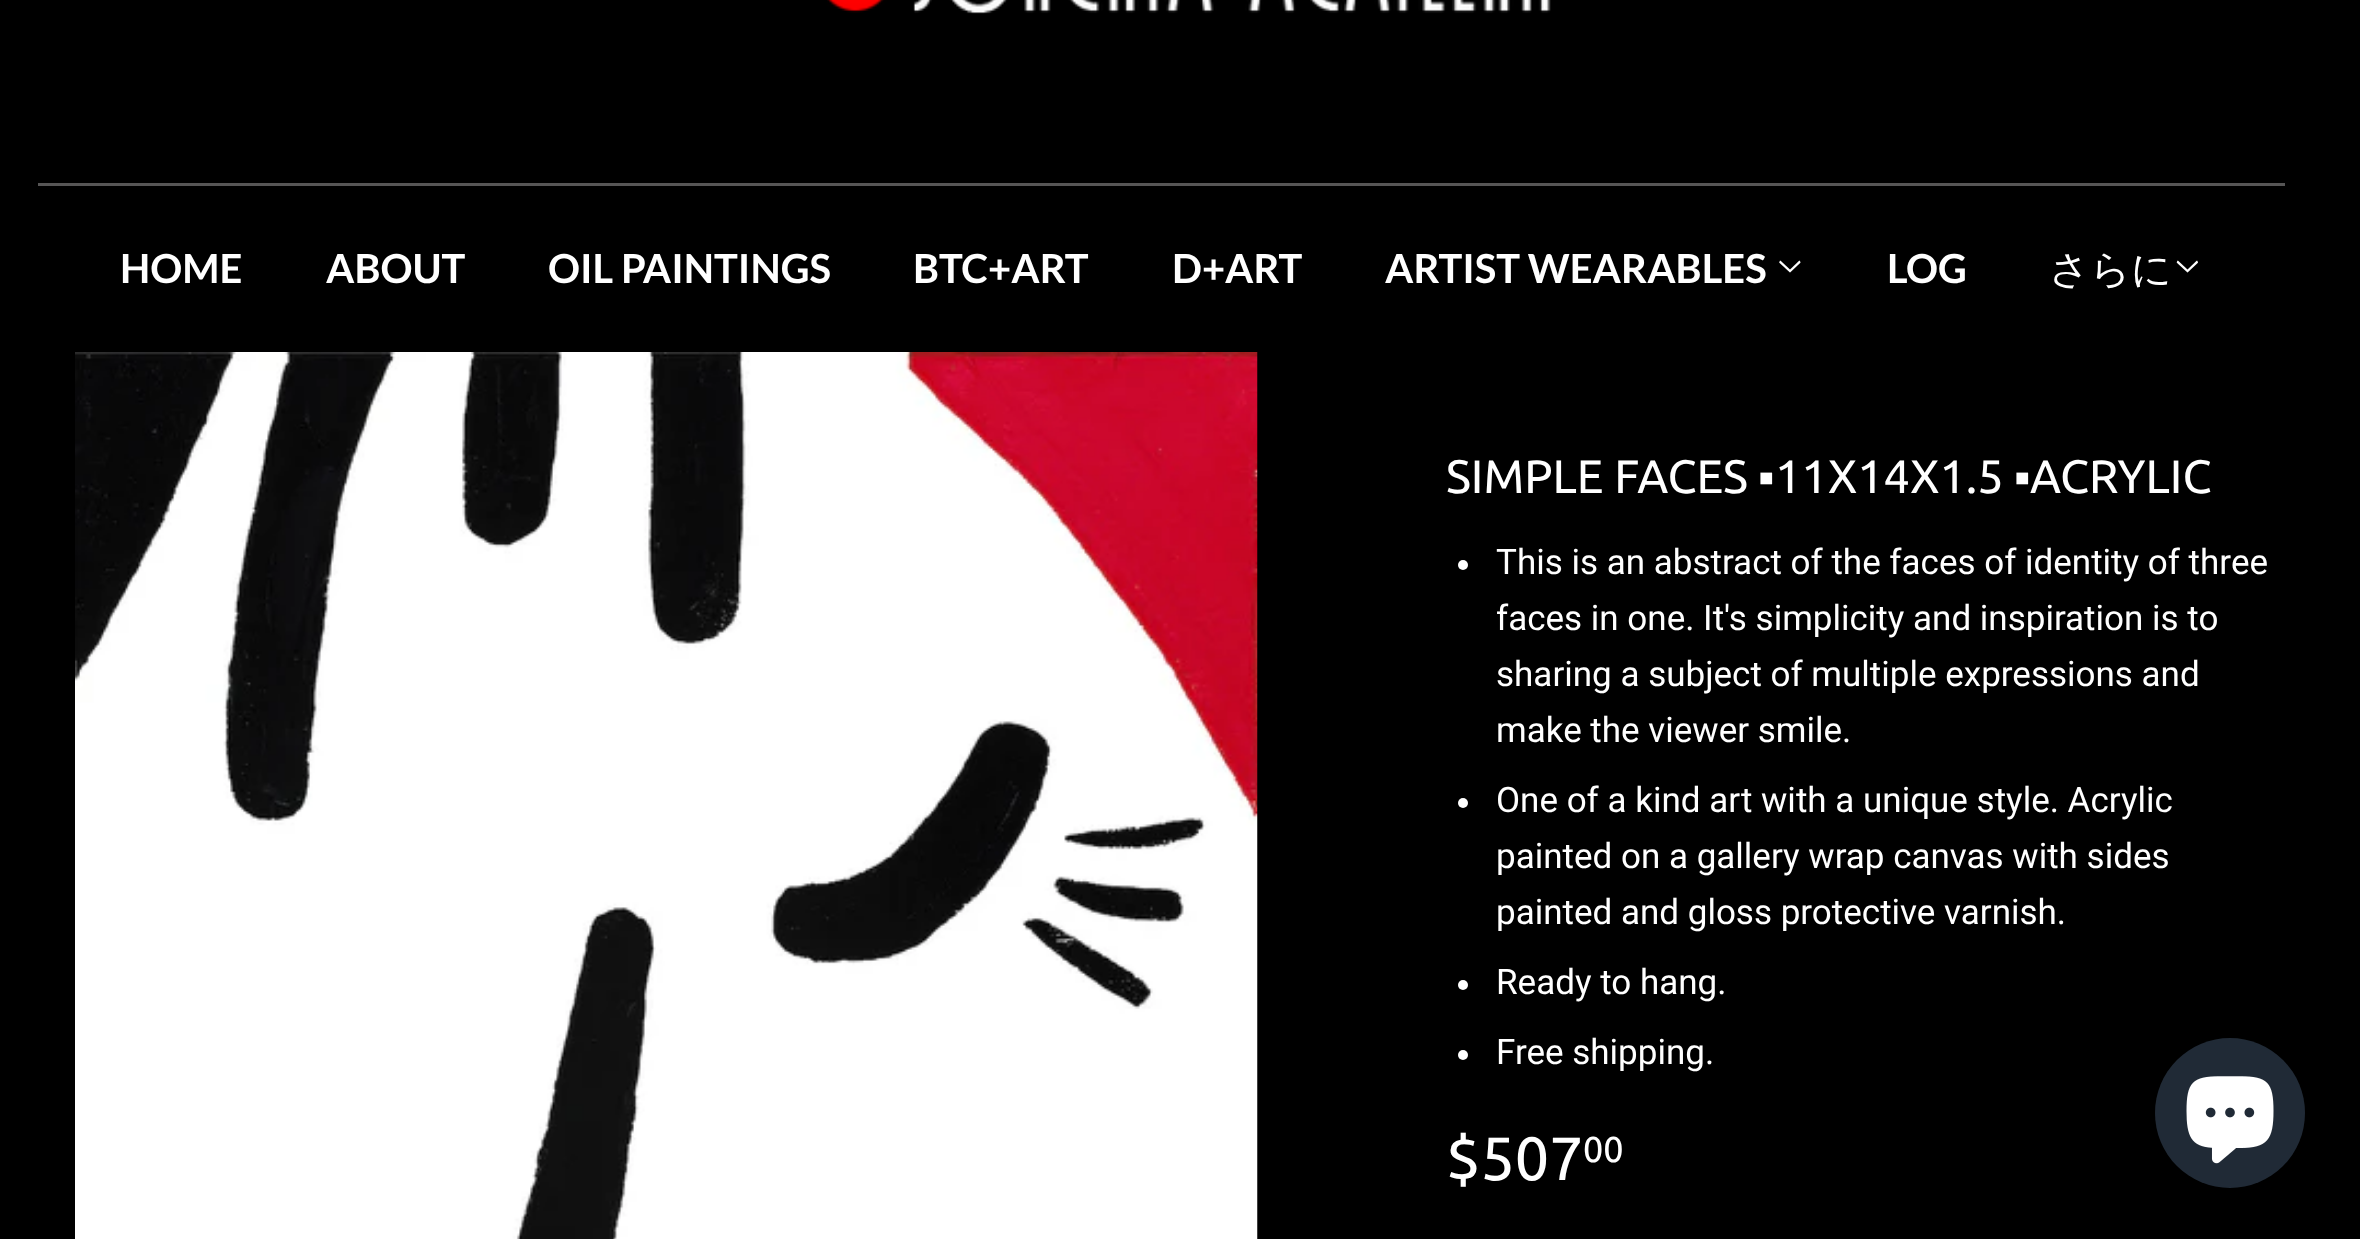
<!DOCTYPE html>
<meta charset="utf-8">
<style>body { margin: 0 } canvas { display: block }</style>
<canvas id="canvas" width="2360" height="1239"></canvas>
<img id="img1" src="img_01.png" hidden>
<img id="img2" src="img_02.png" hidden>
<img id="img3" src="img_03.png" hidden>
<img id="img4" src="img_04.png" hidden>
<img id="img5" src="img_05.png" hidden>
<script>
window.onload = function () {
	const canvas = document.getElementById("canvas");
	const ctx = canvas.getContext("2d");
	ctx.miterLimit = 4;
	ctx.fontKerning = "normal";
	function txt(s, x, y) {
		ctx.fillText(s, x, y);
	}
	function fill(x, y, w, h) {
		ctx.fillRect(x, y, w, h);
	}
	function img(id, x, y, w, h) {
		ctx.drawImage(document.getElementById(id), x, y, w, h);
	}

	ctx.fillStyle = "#000000";
	fill(0, 0, 2360, 1239);
	img("img1", 827, 0, 724, 14);
	ctx.fillStyle = "#565555";
	fill(38, 183, 2247, 3);
	img("img2", 1779, 260, 22, 13);
	img("img3", 2176, 260, 22, 13);
	img("img4", 75, 352, 1183, 887);
	ctx.fillStyle = "#FFFFFF";
	ctx.beginPath();
	ctx.arc(1463, 565, 5, 0, Math.PI * 2);
	ctx.fill();
	ctx.beginPath();
	ctx.arc(1463, 803, 5, 0, Math.PI * 2);
	ctx.fill();
	ctx.beginPath();
	ctx.arc(1463, 985, 5, 0, Math.PI * 2);
	ctx.fill();
	ctx.beginPath();
	ctx.arc(1463, 1055, 5, 0, Math.PI * 2);
	ctx.fill();
	ctx.fillStyle = "#202A36";
	ctx.beginPath();
	ctx.arc(2230, 1113, 75, 0, Math.PI * 2);
	ctx.fill();
	img("img5", 2186, 1076, 88, 88);
	ctx.font = "bold 40px Lato";
	ctx.fillStyle = "#FFFFFF";
	txt("HOME", 120, 283);
	txt("ABOUT", 326, 283);
	txt("OIL PAINTINGS", 548, 283);
	txt("BTC+ART", 913, 283);
	txt("D+ART", 1172, 283);
	txt("ARTIST WEARABLES", 1385, 283);
	txt("LOG", 1887, 283);
	ctx.font = "500 40px WenQuanYi Zen Hei";
	txt("さらに", 2049, 283);
	ctx.font = "46.75px Ubuntu";
	txt("SIMPLE FACES", 1446, 493);
	ctx.font = "46.75px Liberation Sans";
	txt("▪", 1758, 493);
	ctx.font = "46.75px Ubuntu";
	txt("11X14X1.5", 1775, 493);
	ctx.font = "46.75px Liberation Sans";
	txt("▪", 2014, 493);
	ctx.font = "46.75px Ubuntu";
	txt("ACRYLIC", 2030, 493);
	ctx.font = "35px Roboto";
	txt("This is an abstract of the faces of identity of three", 1496, 574);
	txt("faces in one. It's simplicity and inspiration is to", 1496, 630);
	txt("sharing a subject of multiple expressions and", 1496, 686);
	txt("make the viewer smile.", 1496, 742);
	txt("One of a kind art with a unique style. Acrylic", 1496, 812);
	txt("painted on a gallery wrap canvas with sides", 1496, 868);
	txt("painted and gloss protective varnish.", 1496, 924);
	txt("Ready to hang.", 1496, 994);
	txt("Free shipping.", 1496, 1064);
	ctx.font = "61px Ubuntu";
	txt("$507", 1446, 1180);
	ctx.font = "36px Ubuntu";
	txt("00", 1583, 1162);
};
</script>
